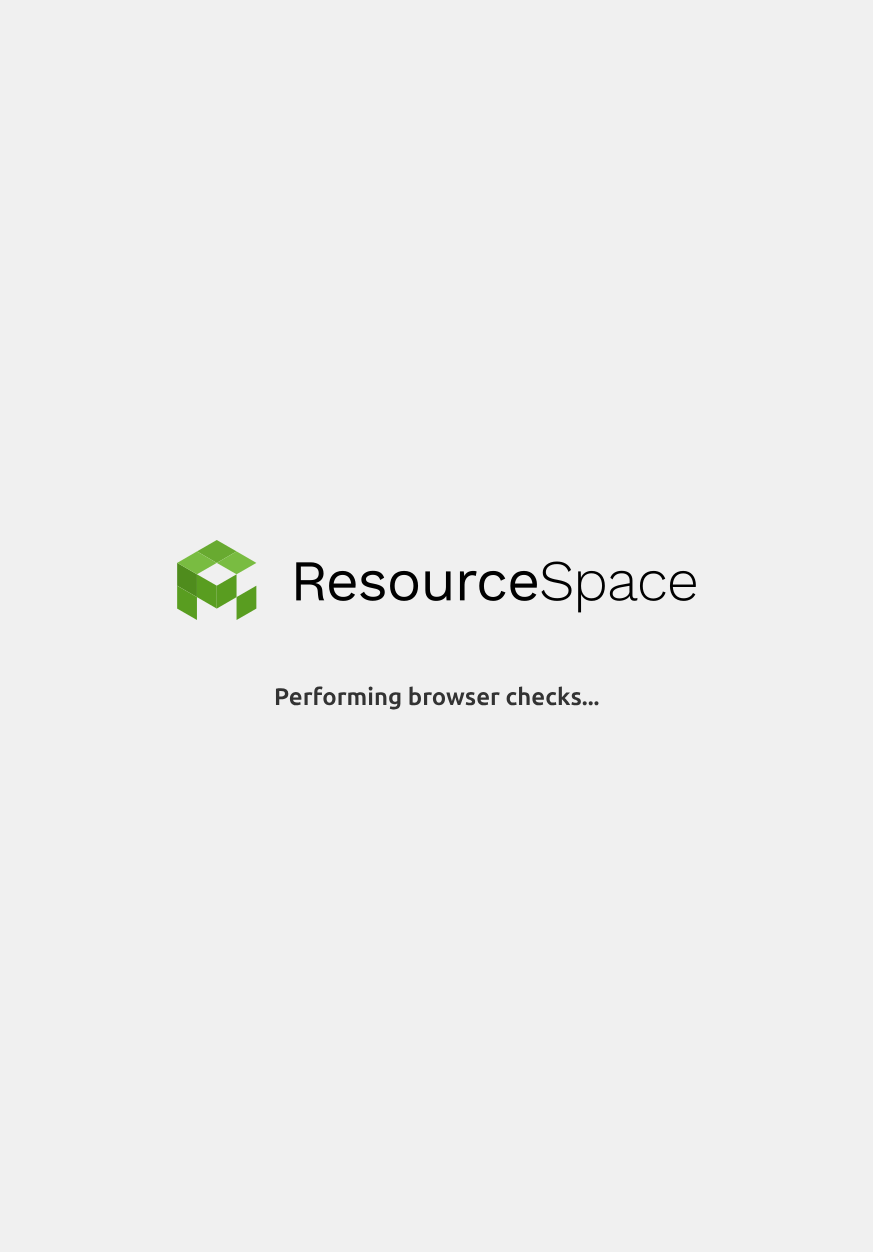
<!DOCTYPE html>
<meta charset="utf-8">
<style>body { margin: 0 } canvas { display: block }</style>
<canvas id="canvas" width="873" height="1252"></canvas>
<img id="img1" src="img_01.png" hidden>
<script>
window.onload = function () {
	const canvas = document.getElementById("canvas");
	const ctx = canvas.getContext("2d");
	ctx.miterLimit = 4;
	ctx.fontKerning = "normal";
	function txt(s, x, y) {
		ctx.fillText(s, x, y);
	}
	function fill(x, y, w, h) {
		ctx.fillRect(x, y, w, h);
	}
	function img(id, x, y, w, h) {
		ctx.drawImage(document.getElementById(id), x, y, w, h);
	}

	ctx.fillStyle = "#F0F0F0";
	fill(0, 0, 873, 1252);
	img("img1", 177, 540, 519, 80);
	ctx.font = "bold 24px Ubuntu";
	ctx.fillStyle = "#333333";
	txt("Performing browser checks...", 274, 705);
};
</script>
